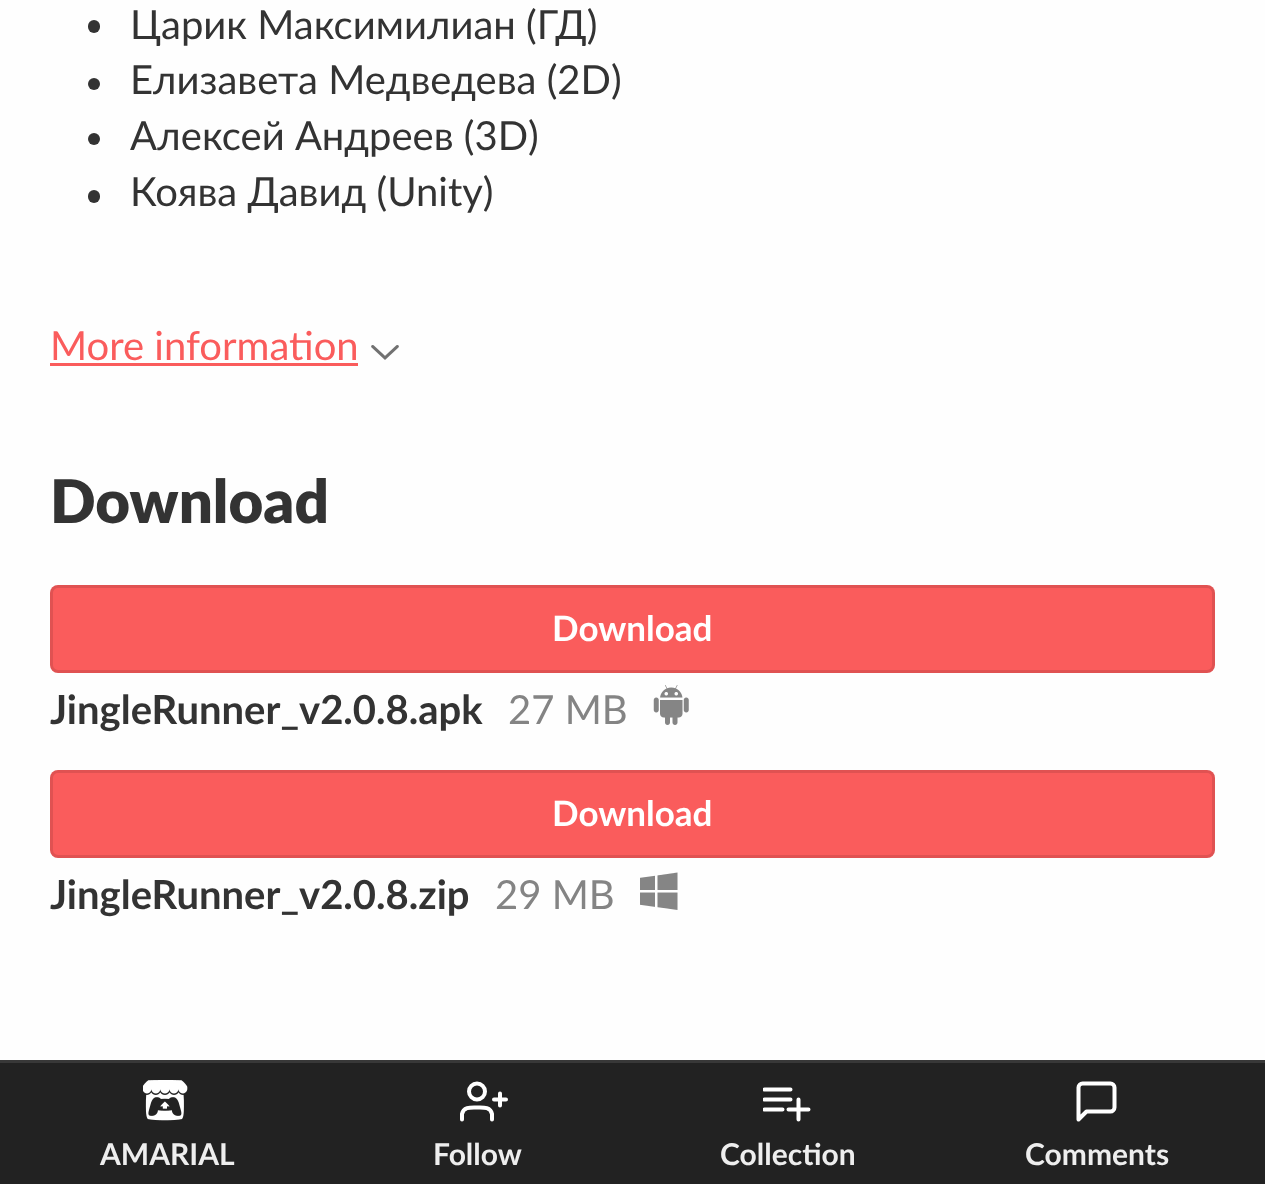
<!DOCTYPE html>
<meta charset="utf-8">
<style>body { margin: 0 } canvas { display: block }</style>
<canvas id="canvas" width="1265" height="1184"></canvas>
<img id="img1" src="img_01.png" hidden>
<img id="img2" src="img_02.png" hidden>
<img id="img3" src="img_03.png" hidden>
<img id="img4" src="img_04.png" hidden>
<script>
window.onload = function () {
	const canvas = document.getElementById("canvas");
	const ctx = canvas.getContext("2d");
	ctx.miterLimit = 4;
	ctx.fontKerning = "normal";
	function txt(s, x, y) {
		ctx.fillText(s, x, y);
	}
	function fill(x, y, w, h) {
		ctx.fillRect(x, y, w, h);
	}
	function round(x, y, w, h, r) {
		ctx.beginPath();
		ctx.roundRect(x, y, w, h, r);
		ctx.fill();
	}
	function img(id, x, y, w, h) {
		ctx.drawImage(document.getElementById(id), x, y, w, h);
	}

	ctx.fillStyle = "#FEFEFE";
	fill(0, 0, 1265, 1184);
	ctx.fillStyle = "#333333";
	round(88, 20, 12, 13, 6);
	ctx.beginPath();
	ctx.arc(94, 84, 6, 0, Math.PI * 2);
	ctx.fill();
	ctx.beginPath();
	ctx.arc(94, 139, 6, 0, Math.PI * 2);
	ctx.fill();
	round(88, 190, 12, 13, 6);
	ctx.fillStyle = "#FA5C5C";
	fill(50, 363, 308, 3);
	img("img1", 371, 345, 28, 15);
	round(50, 585, 1165, 88, 8);
	ctx.beginPath();
	ctx.roundRect(51.5, 586.5, 1162, 85, 6.5);
	ctx.strokeStyle = "rgba(0, 0, 0, 0.1)";
	ctx.lineWidth = 3;
	ctx.stroke();
	img("img2", 653, 685, 36, 40);
	round(50, 770, 1165, 88, 8);
	ctx.beginPath();
	ctx.roundRect(51.5, 771.5, 1162, 85, 6.5);
	ctx.stroke();
	img("img3", 640, 872, 38, 38);
	ctx.fillStyle = "#222222";
	fill(0, 1063, 1265, 121);
	ctx.fillStyle = "#383838";
	fill(0, 1060, 1265, 3);
	img("img4", 143, 1080, 45, 41);
	ctx.beginPath();
	ctx.moveTo(492, 1119.5);
	ctx.lineTo(492, 1114);
	ctx.bezierCurveTo(490.5, 1106.5, 482.5, 1107.5, 477, 1107.5);
	ctx.bezierCurveTo(471.5, 1107.5, 463.5, 1106.5, 462, 1114);
	ctx.lineTo(462, 1119.5);
	ctx.strokeStyle = "#FFFFFF";
	ctx.lineWidth = 4;
	ctx.lineCap = "round";
	ctx.lineJoin = "round";
	ctx.stroke();
	ctx.beginPath();
	ctx.arc(477, 1091.5, 8, 0, Math.PI * 2);
	ctx.stroke();
	ctx.beginPath();
	ctx.moveTo(500, 1093.5);
	ctx.lineTo(500, 1105.5);
	ctx.moveTo(506, 1099.5);
	ctx.lineTo(494, 1099.5);
	ctx.stroke();
	ctx.save();
	ctx.beginPath();
	ctx.rect(763, 1078, 50, 47);
	ctx.clip();
	ctx.beginPath();
	ctx.moveTo(764.5, 1089.5);
	ctx.lineTo(790.5, 1089.5);
	ctx.moveTo(764.5, 1099.5);
	ctx.lineTo(790.5, 1099.5);
	ctx.moveTo(764.5, 1109.5);
	ctx.lineTo(782.5, 1109.5);
	ctx.stroke();
	ctx.restore();
	ctx.beginPath();
	ctx.moveTo(798.5, 1099.5);
	ctx.lineTo(798.5, 1119.5);
	ctx.moveTo(788.5, 1109.5);
	ctx.lineTo(808.5, 1109.5);
	ctx.stroke();
	ctx.beginPath();
	ctx.moveTo(1114.5, 1107.5);
	ctx.bezierCurveTo(1114.5, 1109.5, 1112.5, 1111.5, 1110.5, 1111.5);
	ctx.lineTo(1086.5, 1111.5);
	ctx.lineTo(1078.5, 1119.5);
	ctx.lineTo(1078.5, 1087.5);
	ctx.bezierCurveTo(1078.5, 1085.5, 1080.5, 1083.5, 1082.5, 1083.5);
	ctx.lineTo(1110.5, 1083.5);
	ctx.bezierCurveTo(1112.5, 1083.5, 1114.5, 1085.5, 1114.5, 1087.5);
	ctx.closePath();
	ctx.stroke();
	ctx.font = "40px Lato";
	ctx.fillStyle = "#333333";
	txt("Царик Максимилиан (ГД)", 130, 39);
	txt("Елизавета Медведева (2D)", 130, 94);
	txt("Алексей Андреев (3D)", 130, 150);
	txt("Коява Давид (Unity)", 130, 206);
	ctx.fillStyle = "#FA5C5C";
	txt("More information", 50, 360);
	ctx.font = "900 60px Lato";
	ctx.fillStyle = "#333333";
	txt("Download", 50, 523);
	ctx.font = "bold 35px Lato";
	ctx.fillStyle = "#FFFFFF";
	txt("Download", 552, 641);
	ctx.font = "bold 40px Lato";
	ctx.fillStyle = "#333333";
	txt("JingleRunner_v2.0.8.apk", 50, 724);
	ctx.font = "40px Lato";
	ctx.fillStyle = "#848484";
	txt("27 MB", 508, 724);
	ctx.font = "bold 35px Lato";
	ctx.fillStyle = "#FFFFFF";
	txt("Download", 552, 826);
	ctx.font = "bold 40px Lato";
	ctx.fillStyle = "#333333";
	txt("JingleRunner_v2.0.8.zip", 50, 909);
	ctx.font = "40px Lato";
	ctx.fillStyle = "#848484";
	txt("29 MB", 495, 909);
	ctx.font = "bold 30px Lato";
	ctx.fillStyle = "#EEEEEE";
	txt("AMARIAL", 100, 1165);
	txt("Follow", 433, 1165);
	txt("Collection", 720, 1165);
	txt("Comments", 1025, 1165);
};
</script>
